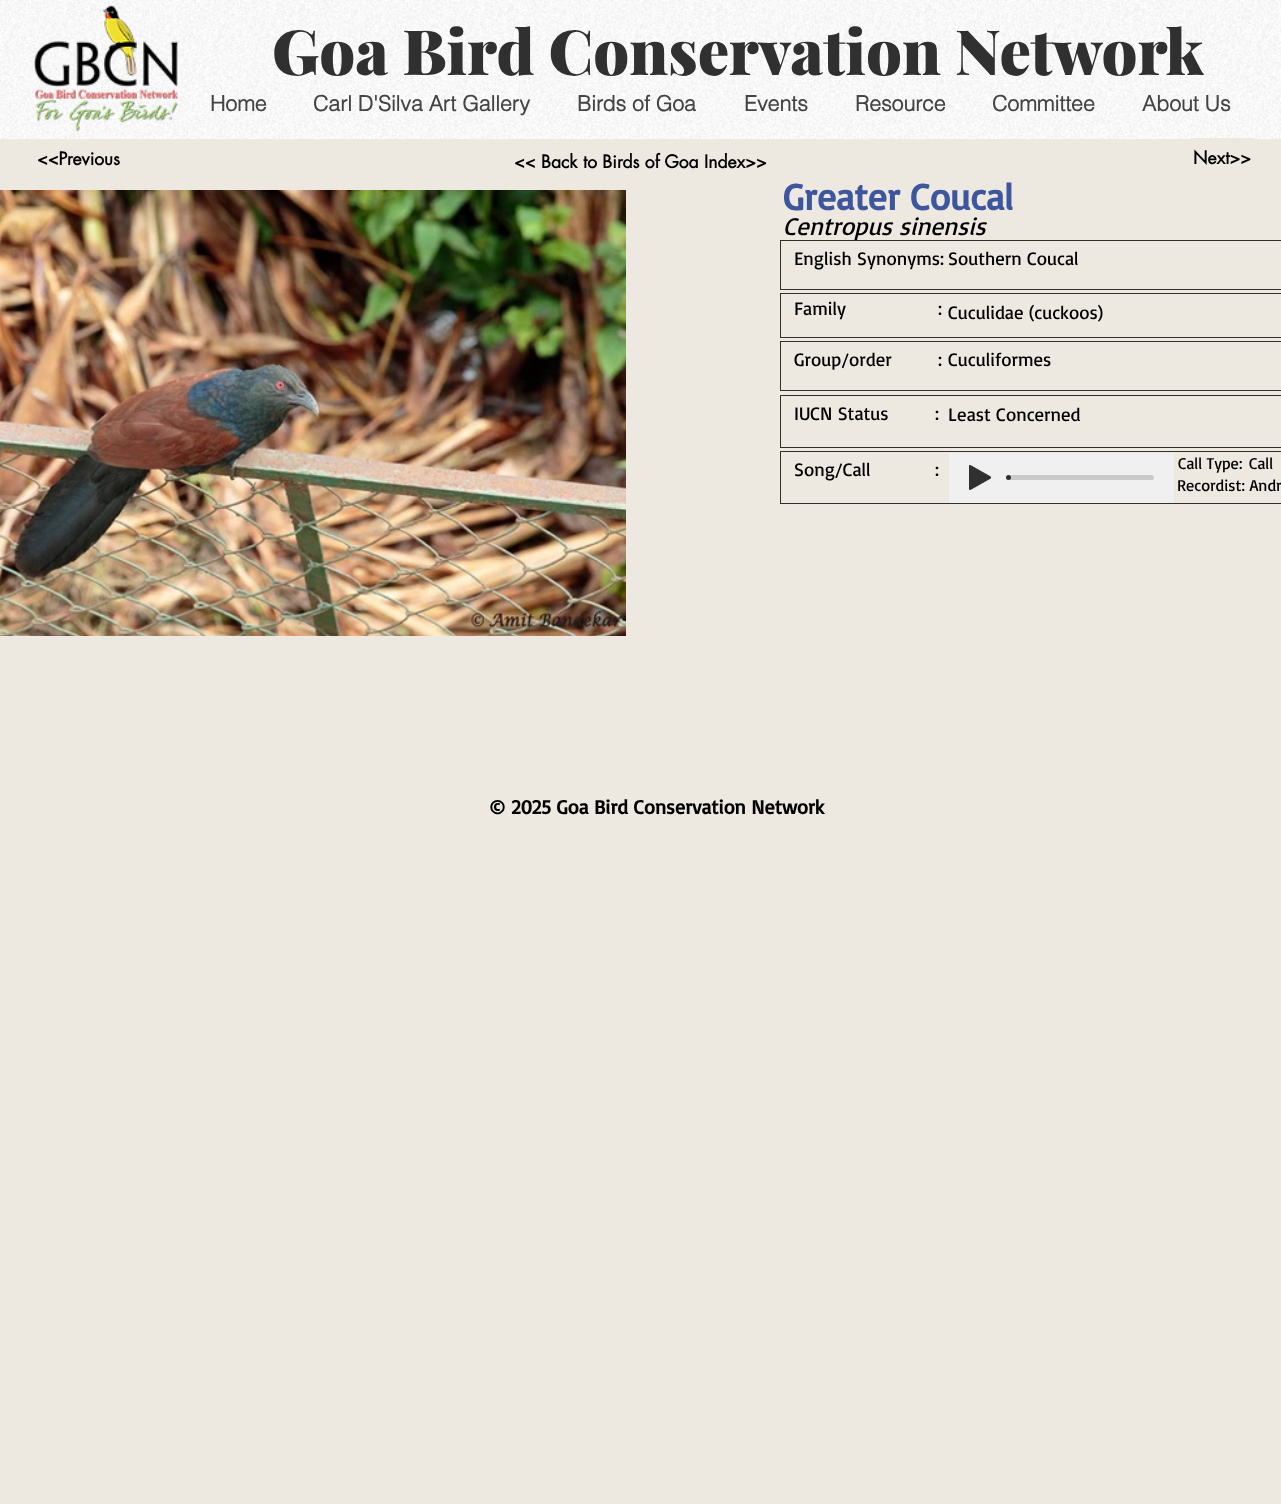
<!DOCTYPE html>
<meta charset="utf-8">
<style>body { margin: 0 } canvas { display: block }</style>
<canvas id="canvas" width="1281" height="1504"></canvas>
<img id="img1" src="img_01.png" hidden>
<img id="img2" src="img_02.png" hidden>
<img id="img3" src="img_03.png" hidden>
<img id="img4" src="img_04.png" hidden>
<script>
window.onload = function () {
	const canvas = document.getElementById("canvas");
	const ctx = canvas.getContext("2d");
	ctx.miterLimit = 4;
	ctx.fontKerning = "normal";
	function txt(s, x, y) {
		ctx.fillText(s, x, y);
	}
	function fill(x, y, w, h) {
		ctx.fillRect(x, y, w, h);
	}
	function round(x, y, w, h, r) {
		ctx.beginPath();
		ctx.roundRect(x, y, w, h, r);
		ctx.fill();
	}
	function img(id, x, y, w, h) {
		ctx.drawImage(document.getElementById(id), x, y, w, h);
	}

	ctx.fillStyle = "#EDE9E1";
	fill(0, 0, 1281, 1504);
	ctx.fillStyle = "#FFFFFF";
	fill(0, 0, 1281, 139);
	img("img1", 0, 0, 1281, 139);
	img("img2", 33, 5, 146, 127);
	ctx.strokeStyle = "#EDE9E1";
	ctx.lineWidth = 3;
	ctx.strokeRect(1192.5, 139.5, 60, 37);
	img("img3", 0, 190, 626, 446);
	ctx.strokeStyle = "#303030";
	ctx.lineWidth = 1;
	ctx.strokeRect(780.5, 240.5, 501, 49);
	ctx.strokeRect(780.5, 293.5, 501, 44);
	ctx.strokeRect(780.5, 341.5, 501, 49);
	ctx.strokeRect(780.5, 395.5, 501, 52);
	ctx.strokeRect(780.5, 451.5, 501, 52);
	ctx.fillStyle = "#F0F0F0";
	fill(949, 453, 225, 50);
	img("img4", 969, 465, 22, 25);
	ctx.fillStyle = "#CACACA";
	round(1009, 475, 145, 5, 2.5);
	ctx.fillStyle = "#303030";
	ctx.beginPath();
	ctx.arc(1008.5, 477.5, 2.5, 0, Math.PI * 2);
	ctx.fill();
	ctx.font = "900 62.5px Playfair Display";
	txt("Goa Bird Conservation Network", 272, 75);
	ctx.font = "bold 21.25px helvetica";
	ctx.fillStyle = "#444444";
	txt("Home", 210, 111);
	txt("Carl D'Silva Art Gallery", 313, 111);
	txt("Birds of Goa", 577, 111);
	txt("Events", 744, 111);
	txt("Resource", 855, 111);
	txt("Committee", 992, 111);
	txt("About Us", 1142, 111);
	ctx.font = "bold 17.5px futura";
	ctx.fillStyle = "#000000";
	txt("<<Previous", 37, 165);
	txt("<< Back to Birds of Goa Index>>", 514, 168);
	txt("Next>>", 1193, 164);
	ctx.font = "bold 37.5px Basic";
	ctx.fillStyle = "#3E569E";
	txt("Greater Coucal", 783, 210);
	ctx.font = "italic 25px Basic";
	ctx.fillStyle = "#000000";
	txt("Centropus sinensis", 783, 235);
	ctx.font = "18.75px Basic";
	txt("English Synonyms:", 794, 265);
	txt("Southern Coucal", 948, 265);
	txt("Family", 794, 315);
	txt(":", 938, 315);
	txt("Cuculidae (cuckoos)", 948, 319);
	txt("Group/order", 794, 366);
	txt(":", 938, 366);
	txt("Cuculiformes", 948, 366);
	txt("IUCN Status", 794, 420);
	txt(":", 935, 420);
	txt("Least Concerned", 948, 421);
	txt("Song/Call", 794, 476);
	txt(":", 935, 476);
	ctx.font = "16.25px Basic";
	txt("Call Type:", 1178, 469);
	txt("Call", 1249, 469);
	txt("Recordist: Andr", 1177, 491);
	ctx.font = "bold 20px Basic";
	txt("© 2025 Goa Bird Conservation Network", 489, 814);
};
</script>
